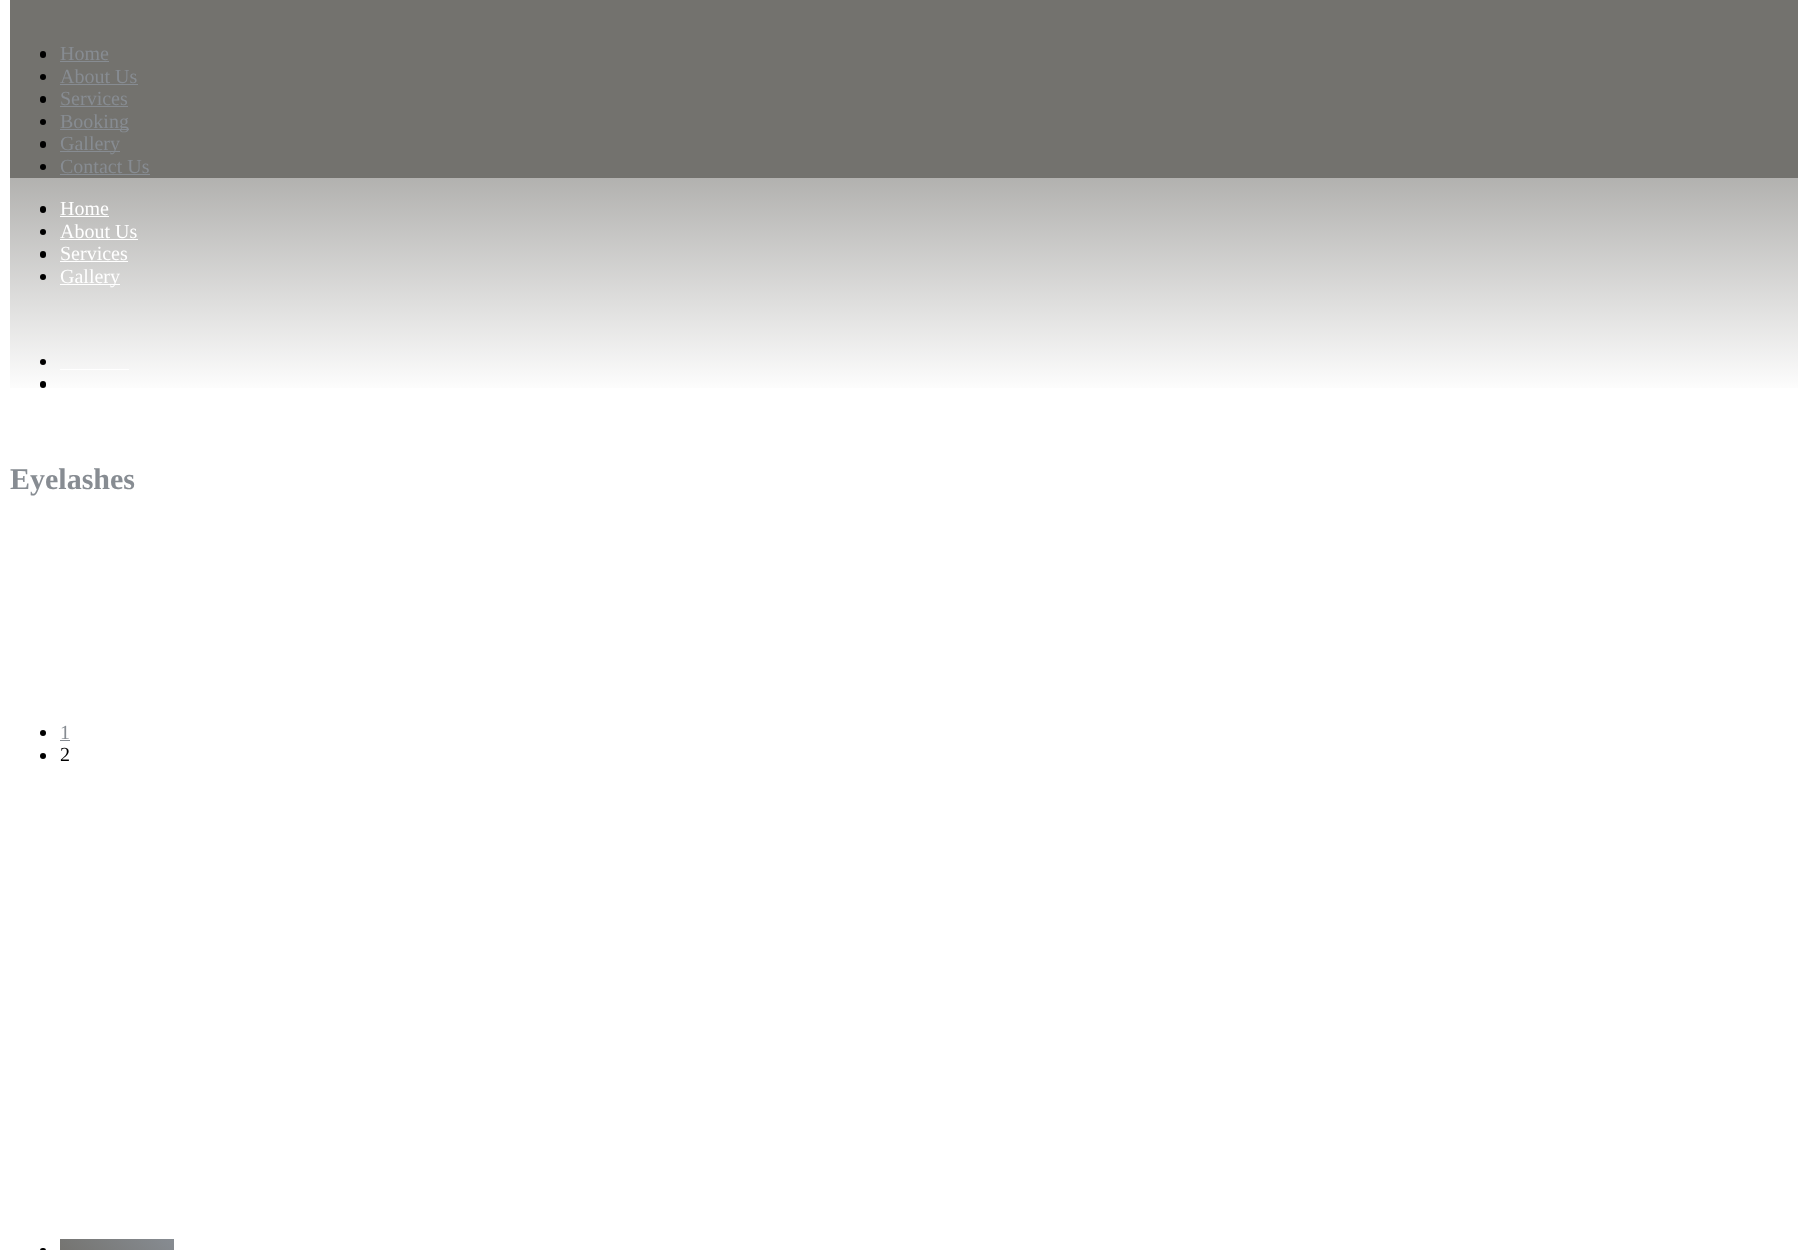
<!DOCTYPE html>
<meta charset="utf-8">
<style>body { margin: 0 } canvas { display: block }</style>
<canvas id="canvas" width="1807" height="1250"></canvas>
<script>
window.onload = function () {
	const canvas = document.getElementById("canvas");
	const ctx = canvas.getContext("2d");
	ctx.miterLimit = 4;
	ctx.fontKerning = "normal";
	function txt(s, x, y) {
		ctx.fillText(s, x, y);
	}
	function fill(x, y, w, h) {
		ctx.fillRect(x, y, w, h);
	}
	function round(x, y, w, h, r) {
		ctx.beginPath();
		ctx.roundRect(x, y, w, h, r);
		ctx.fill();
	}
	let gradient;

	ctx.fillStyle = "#FFFFFF";
	fill(0, 0, 1807, 1250);
	gradient = ctx.createLinearGradient(904, 0, 904, 395);
	gradient.addColorStop(0, "#73726E");
	gradient.addColorStop(1, "#FFFFFF");
	ctx.fillStyle = gradient;
	fill(10, 178, 1788, 210);
	ctx.fillStyle = "#73726E";
	fill(10, 0, 1788, 178);
	ctx.fillStyle = "#000000";
	round(40, 51, 6, 7, 3);
	ctx.fillStyle = "#878C92";
	fill(60, 61, 49, 1);
	ctx.fillStyle = "#000000";
	ctx.beginPath();
	ctx.arc(43, 77, 3, 0, Math.PI * 2);
	ctx.fill();
	ctx.fillStyle = "#878C92";
	fill(60, 84, 78, 1);
	ctx.fillStyle = "#000000";
	round(40, 96, 6, 7, 3);
	ctx.fillStyle = "#878C92";
	fill(60, 106, 68, 1);
	ctx.fillStyle = "#000000";
	ctx.beginPath();
	ctx.arc(43, 122, 3, 0, Math.PI * 2);
	ctx.fill();
	ctx.fillStyle = "#878C92";
	fill(60, 129, 69, 1);
	ctx.fillStyle = "#000000";
	round(40, 141, 6, 7, 3);
	ctx.fillStyle = "#878C92";
	fill(60, 151, 60, 1);
	ctx.fillStyle = "#000000";
	ctx.beginPath();
	ctx.arc(43, 167, 3, 0, Math.PI * 2);
	ctx.fill();
	ctx.fillStyle = "#878C92";
	fill(60, 174, 90, 1);
	ctx.fillStyle = "#000000";
	round(40, 206, 6, 7, 3);
	ctx.fillStyle = "#FFFFFF";
	fill(60, 216, 49, 1);
	ctx.fillStyle = "#000000";
	ctx.beginPath();
	ctx.arc(43, 232, 3, 0, Math.PI * 2);
	ctx.fill();
	ctx.fillStyle = "#FFFFFF";
	fill(60, 239, 78, 1);
	ctx.fillStyle = "#000000";
	round(40, 251, 6, 7, 3);
	ctx.fillStyle = "#FFFFFF";
	fill(60, 261, 68, 1);
	ctx.fillStyle = "#000000";
	ctx.beginPath();
	ctx.arc(43, 277, 3, 0, Math.PI * 2);
	ctx.fill();
	ctx.fillStyle = "#FFFFFF";
	fill(60, 284, 60, 1);
	ctx.fillStyle = "#000000";
	ctx.beginPath();
	ctx.arc(43, 362, 3, 0, Math.PI * 2);
	ctx.fill();
	ctx.fillStyle = "#FFFFFF";
	fill(60, 369, 69, 1);
	ctx.fillStyle = "#000000";
	round(40, 381, 6, 7, 3);
	ctx.beginPath();
	ctx.arc(43, 733, 3, 0, Math.PI * 2);
	ctx.fill();
	ctx.fillStyle = "#878C92";
	fill(60, 740, 10, 1);
	ctx.fillStyle = "#000000";
	ctx.beginPath();
	ctx.arc(43, 756, 3, 0, Math.PI * 2);
	ctx.fill();
	gradient = ctx.createLinearGradient(83, 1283, 151, 1216);
	gradient.addColorStop(0, "#73726E");
	gradient.addColorStop(1, "#878C92");
	ctx.fillStyle = gradient;
	fill(60, 1239, 114, 11);
	ctx.fillStyle = "#000000";
	round(40, 1248, 6, 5, 3);
	ctx.font = "20px Liberation Serif";
	ctx.fillStyle = "#878C92";
	txt("Home", 60, 60);
	txt("About Us", 60, 83);
	txt("Services", 60, 105);
	txt("Booking", 60, 128);
	txt("Gallery", 60, 150);
	txt("Contact Us", 60, 173);
	ctx.fillStyle = "#FFFFFF";
	txt("Home", 60, 215);
	txt("About Us", 60, 238);
	txt("Services", 60, 260);
	txt("Gallery", 60, 283);
	ctx.font = "bold 30px Liberation Serif";
	ctx.fillStyle = "#878C92";
	txt("Eyelashes", 10, 489);
	ctx.font = "20px Liberation Serif";
	txt("1", 60, 739);
	ctx.fillStyle = "#000000";
	txt("2", 60, 761);
};
</script>
